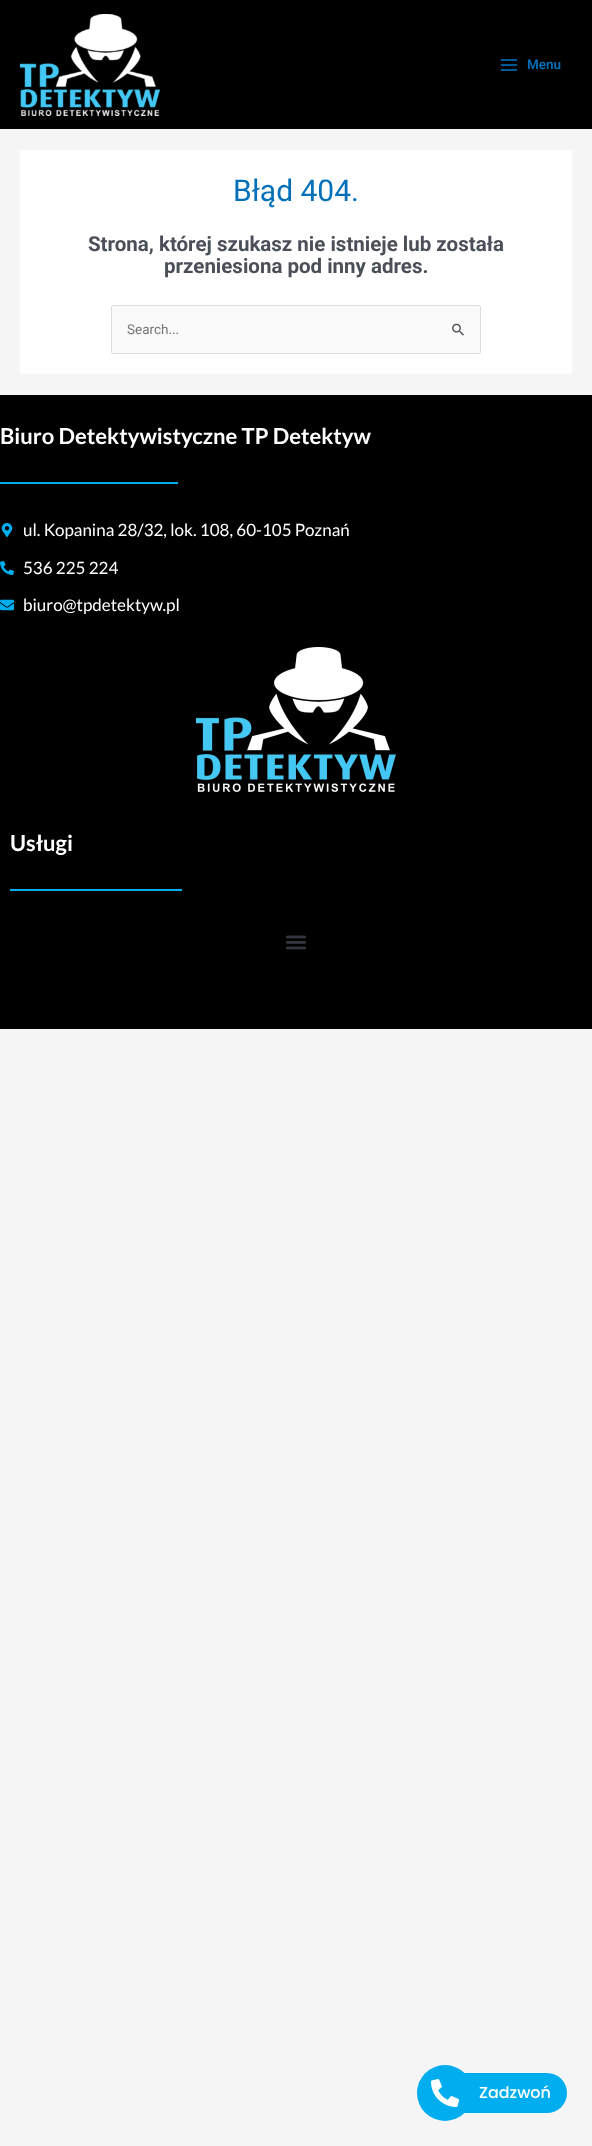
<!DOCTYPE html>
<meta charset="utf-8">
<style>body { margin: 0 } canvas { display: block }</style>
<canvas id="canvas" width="592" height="2146"></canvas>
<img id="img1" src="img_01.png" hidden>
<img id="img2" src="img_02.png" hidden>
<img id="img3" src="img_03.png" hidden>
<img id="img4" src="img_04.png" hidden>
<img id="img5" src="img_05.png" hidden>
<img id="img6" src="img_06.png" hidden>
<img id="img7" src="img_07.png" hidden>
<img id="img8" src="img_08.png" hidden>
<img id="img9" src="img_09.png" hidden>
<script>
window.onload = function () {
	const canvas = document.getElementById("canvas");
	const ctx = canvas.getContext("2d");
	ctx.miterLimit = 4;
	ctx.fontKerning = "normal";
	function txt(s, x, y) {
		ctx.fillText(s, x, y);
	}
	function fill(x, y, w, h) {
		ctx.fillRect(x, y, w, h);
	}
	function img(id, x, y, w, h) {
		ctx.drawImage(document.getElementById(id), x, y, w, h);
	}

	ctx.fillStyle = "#F5F5F5";
	fill(0, 0, 592, 2146);
	ctx.fillStyle = "#000000";
	fill(0, 0, 592, 129);
	img("img1", 20, 14, 140, 102);
	img("img2", 500, 59, 18, 12);
	ctx.fillStyle = "#FFFFFF";
	fill(20, 150, 552, 224);
	ctx.fillStyle = "#FAFAFA";
	ctx.beginPath();
	ctx.roundRect(111.5, 305.5, 369, 48, 1.5);
	ctx.fill();
	ctx.strokeStyle = "#DDDDDD";
	ctx.stroke();
	img("img3", 452, 323, 12, 13);
	ctx.fillStyle = "#000000";
	fill(0, 395, 592, 634);
	ctx.fillStyle = "#00AEEF";
	fill(0, 482, 178, 2);
	img("img4", 1, 523, 12, 14);
	img("img5", 0, 561, 14, 14);
	img("img6", 0, 599, 14, 12);
	img("img7", 196, 647, 200, 145);
	fill(10, 889, 172, 2);
	img("img8", 286, 935, 20, 15);
	ctx.beginPath();
	ctx.roundRect(463, 2073, 104, 40, [0, 20, 20, 0]);
	ctx.fill();
	ctx.beginPath();
	ctx.arc(445, 2093, 28, 0, Math.PI * 2);
	ctx.fill();
	img("img9", 431, 2079, 28, 28);
	ctx.font = "600 13.5px Roboto";
	ctx.fillStyle = "#0170B9";
	txt("Menu", 527, 69);
	ctx.font = "30px Roboto";
	txt("Błąd 404.", 233, 201);
	ctx.font = "bold 20.5px Roboto";
	ctx.fillStyle = "#4B4F58";
	txt("Strona, której szukasz nie istnieje lub została", 88, 251);
	txt("przeniesiona pod inny adres.", 164, 273);
	ctx.font = "13.5px Roboto";
	ctx.fillStyle = "#757575";
	txt("Search...", 127, 334);
	ctx.font = "bold 22px Lato";
	ctx.fillStyle = "#FFFFFF";
	txt("Biuro Detektywistyczne TP Detektyw", 0, 444);
	ctx.font = "17px Lato";
	txt("ul. Kopanina 28/32, lok. 108, 60-105 Poznań", 23, 536);
	txt("536 225 224", 23, 574);
	txt("biuro@tpdetektyw.pl", 23, 611);
	ctx.font = "bold 22px Lato";
	txt("Usługi", 10, 851);
	ctx.font = "500 16px Poppins";
	txt("Zadzwoń", 479, 2098);
};
</script>
